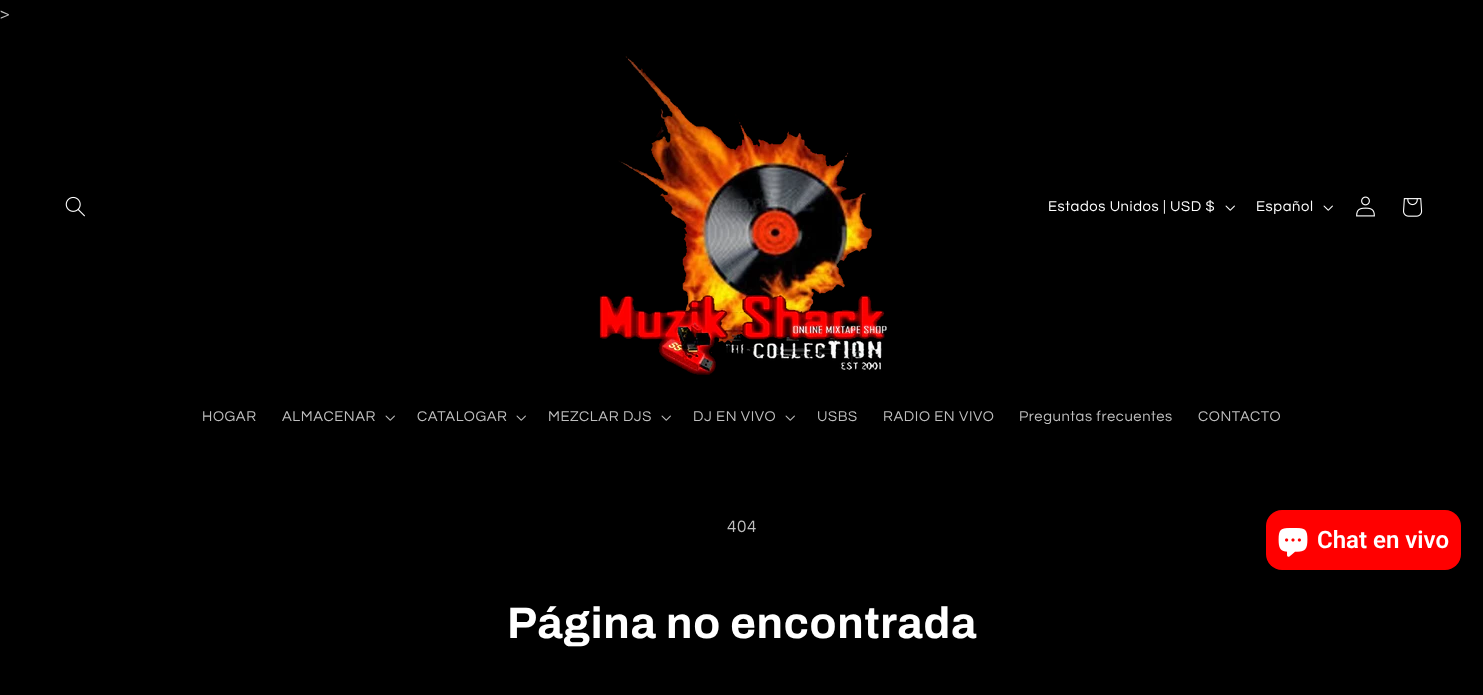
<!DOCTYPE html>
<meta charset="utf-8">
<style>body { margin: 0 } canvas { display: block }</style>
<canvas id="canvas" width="1483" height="695"></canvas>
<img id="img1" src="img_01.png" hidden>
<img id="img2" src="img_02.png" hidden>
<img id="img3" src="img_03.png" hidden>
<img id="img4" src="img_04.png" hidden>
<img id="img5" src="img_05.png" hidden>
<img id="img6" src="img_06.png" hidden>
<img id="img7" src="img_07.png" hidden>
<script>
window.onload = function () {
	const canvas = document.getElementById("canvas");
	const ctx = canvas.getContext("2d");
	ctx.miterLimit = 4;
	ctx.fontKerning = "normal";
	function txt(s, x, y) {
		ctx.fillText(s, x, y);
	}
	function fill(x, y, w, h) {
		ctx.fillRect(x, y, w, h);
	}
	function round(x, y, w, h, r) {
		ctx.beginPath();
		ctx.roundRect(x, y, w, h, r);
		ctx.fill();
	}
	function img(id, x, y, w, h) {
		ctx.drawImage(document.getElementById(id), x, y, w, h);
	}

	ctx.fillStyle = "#000000";
	fill(0, 0, 1483, 695);
	img("img1", 65, 196, 20, 21);
	img("img2", 599, 56, 288, 319);
	img("img3", 1225, 205, 10, 6);
	img("img3", 1323, 205, 10, 6);
	img("img4", 1356, 196, 19, 21);
	img("img5", 1403, 198, 20, 19);
	img("img6", 385, 415, 10, 6);
	img("img6", 516, 415, 10, 6);
	img("img6", 661, 415, 10, 6);
	img("img6", 785, 415, 10, 6);
	ctx.fillStyle = "#FF0000";
	round(1266, 510, 195, 60, 16);
	img("img7", 1278, 528, 30, 29);
	ctx.letterSpacing = "0.6px";
	ctx.font = "17px Questrial";
	ctx.fillStyle = "#BFBFBF";
	txt(">", 0, 19);
	ctx.font = "14.75px Questrial";
	ctx.fillStyle = "#FFFFFF";
	txt("Estados Unidos | USD $", 1048, 211);
	txt("Español", 1256, 211);
	ctx.fillStyle = "#BFBFBF";
	txt("HOGAR", 202, 421);
	txt("ALMACENAR", 282, 421);
	txt("CATALOGAR", 417, 421);
	txt("MEZCLAR DJS", 548, 421);
	txt("DJ EN VIVO", 693, 421);
	txt("USBS", 817, 421);
	txt("RADIO EN VIVO", 883, 421);
	txt("Preguntas frecuentes", 1019, 421);
	txt("CONTACTO", 1198, 421);
	ctx.font = "17px Questrial";
	txt("404", 727, 532);
	ctx.letterSpacing = "0.7px";
	ctx.font = "bold 44px Archivo";
	ctx.fillStyle = "#FFFFFF";
	txt("Página no encontrada", 507, 638);
	ctx.letterSpacing = "0px";
	ctx.font = "600 24px Roboto";
	txt("Chat en vivo", 1317, 548);
};
</script>
